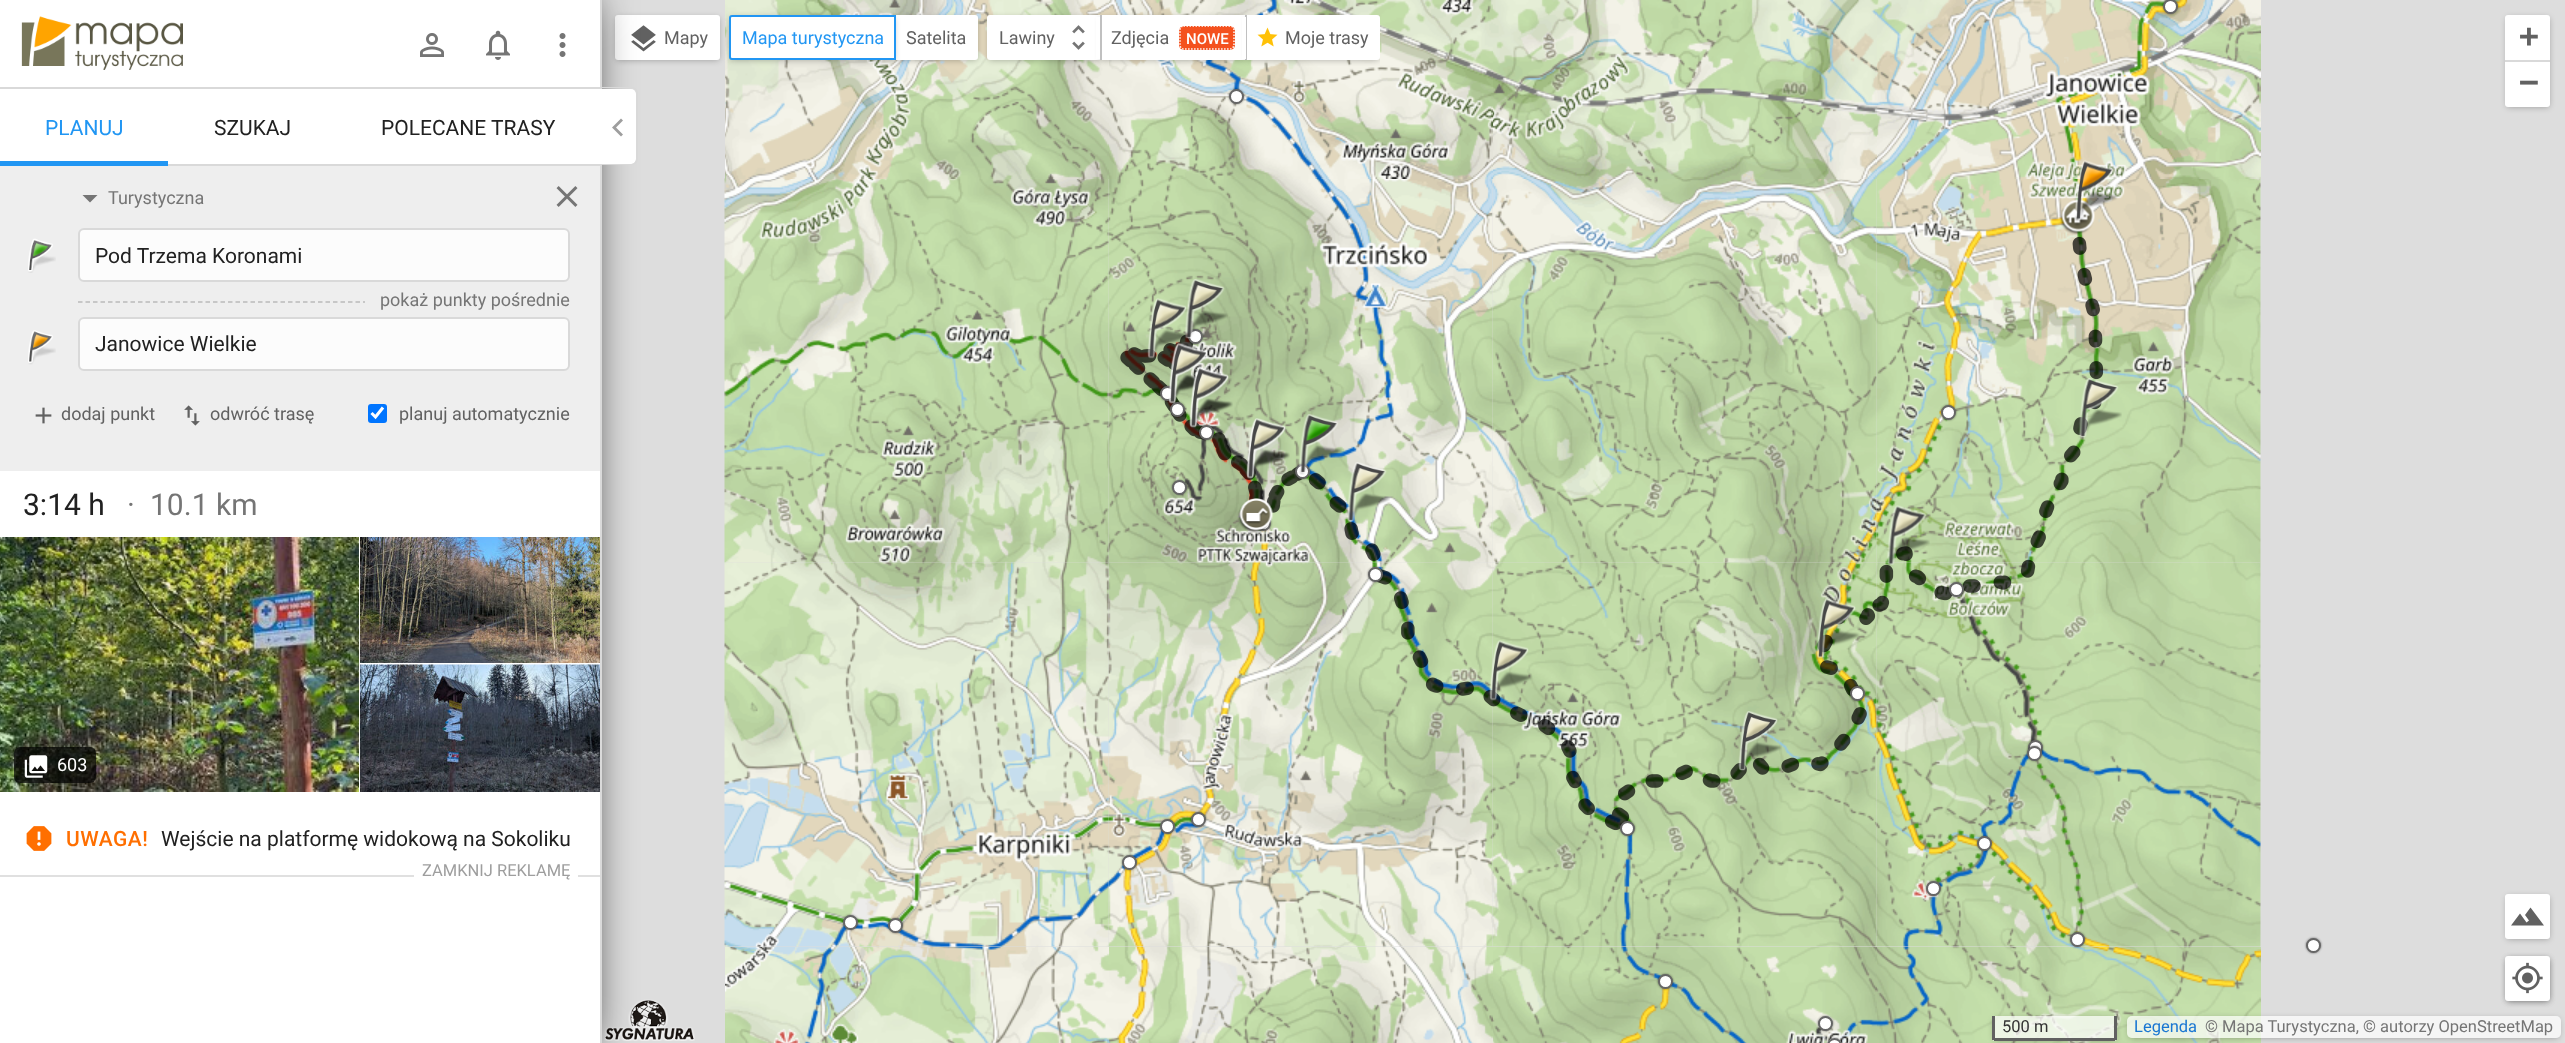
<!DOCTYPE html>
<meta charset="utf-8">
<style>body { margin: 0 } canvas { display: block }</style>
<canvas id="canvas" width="2565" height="1043"></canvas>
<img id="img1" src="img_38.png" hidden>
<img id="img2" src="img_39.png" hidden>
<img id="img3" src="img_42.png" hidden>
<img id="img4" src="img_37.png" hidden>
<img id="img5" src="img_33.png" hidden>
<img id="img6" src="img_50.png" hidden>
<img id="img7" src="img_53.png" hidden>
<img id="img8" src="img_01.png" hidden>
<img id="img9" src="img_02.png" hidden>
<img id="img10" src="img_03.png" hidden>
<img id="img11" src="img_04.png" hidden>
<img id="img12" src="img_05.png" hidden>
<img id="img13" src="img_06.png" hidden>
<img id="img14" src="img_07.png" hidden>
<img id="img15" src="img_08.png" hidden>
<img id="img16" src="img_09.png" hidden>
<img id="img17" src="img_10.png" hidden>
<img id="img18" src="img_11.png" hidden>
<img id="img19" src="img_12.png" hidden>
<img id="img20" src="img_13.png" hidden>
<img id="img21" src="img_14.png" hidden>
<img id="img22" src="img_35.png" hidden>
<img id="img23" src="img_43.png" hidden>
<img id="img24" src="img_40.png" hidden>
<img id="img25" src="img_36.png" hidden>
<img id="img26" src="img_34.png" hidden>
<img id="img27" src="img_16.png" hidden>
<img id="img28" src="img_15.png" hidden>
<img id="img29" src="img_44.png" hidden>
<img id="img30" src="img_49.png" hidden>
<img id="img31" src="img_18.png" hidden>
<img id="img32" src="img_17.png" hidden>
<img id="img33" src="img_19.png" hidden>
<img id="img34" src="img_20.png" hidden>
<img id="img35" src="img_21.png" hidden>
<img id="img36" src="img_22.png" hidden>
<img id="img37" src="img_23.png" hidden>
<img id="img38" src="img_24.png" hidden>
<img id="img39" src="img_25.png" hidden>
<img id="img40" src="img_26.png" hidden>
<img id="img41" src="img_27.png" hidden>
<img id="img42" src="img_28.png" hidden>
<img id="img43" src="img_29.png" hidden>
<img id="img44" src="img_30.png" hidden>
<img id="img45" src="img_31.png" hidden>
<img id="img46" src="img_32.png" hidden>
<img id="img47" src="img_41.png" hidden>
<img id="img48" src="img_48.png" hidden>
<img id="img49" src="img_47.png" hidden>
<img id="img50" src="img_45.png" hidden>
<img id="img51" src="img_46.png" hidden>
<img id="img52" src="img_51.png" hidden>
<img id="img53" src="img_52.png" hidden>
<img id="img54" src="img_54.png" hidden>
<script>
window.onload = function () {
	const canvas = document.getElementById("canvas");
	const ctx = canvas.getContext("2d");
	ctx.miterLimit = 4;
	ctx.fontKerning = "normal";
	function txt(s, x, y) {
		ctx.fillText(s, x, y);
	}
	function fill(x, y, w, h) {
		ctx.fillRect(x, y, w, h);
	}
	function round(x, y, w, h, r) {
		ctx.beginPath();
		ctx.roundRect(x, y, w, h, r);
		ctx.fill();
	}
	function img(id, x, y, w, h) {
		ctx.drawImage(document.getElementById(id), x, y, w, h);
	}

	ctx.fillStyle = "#DDDDDD";
	fill(0, 0, 2565, 1043);
	img("img1", 1108, 179, 385, 384);
	img("img2", 1492, 179, 385, 384);
	img("img3", 1108, 562, 385, 385);
	img("img4", 724, 178, 385, 385);
	img("img5", 725, 0, 384, 179);
	ctx.fillStyle = "rgba(0, 0, 0, 0.3)";
	ctx.filter = "blur(3px)";
	ctx.beginPath();
	ctx.roundRect(617, 18, 102, 42, 1.5);
	ctx.fill();
	ctx.filter = "none";
	ctx.fillStyle = "#FFFFFF";
	round(615, 15, 105, 45, 3);
	img("img6", 631, 25, 25, 27);
	img("img7", 604, 999, 91, 42);
	ctx.fillStyle = "#000000";
	ctx.filter = "blur(22.5px)";
	ctx.beginPath();
	ctx.rect(-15, 0, 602, 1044);
	ctx.fill();
	ctx.filter = "none";
	ctx.fillStyle = "#FFFFFF";
	fill(0, 0, 600, 1043);
	ctx.fillStyle = "#D9D9D9";
	fill(600, 0, 2, 1043);
	fill(0, 87, 600, 2);
	img("img8", 21, 16, 162, 54);
	img("img9", 420, 33, 24, 24);
	img("img10", 486, 30, 24, 30);
	img("img11", 559, 33, 7, 24);
	fill(168, 164, 432, 2);
	ctx.fillStyle = "#2196F3";
	fill(0, 161, 168, 5);
	ctx.fillStyle = "#EEEEEE";
	fill(0, 166, 600, 305);
	ctx.fillStyle = "#757575";
	ctx.beginPath();
	ctx.moveTo(82.5, 195);
	ctx.lineTo(97.5, 195);
	ctx.lineTo(90, 202.5);
	ctx.closePath();
	ctx.fill();
	img("img12", 556, 186, 22, 21);
	img("img13", 28, 238, 28, 35);
	ctx.fillStyle = "#FCFCFC";
	ctx.beginPath();
	ctx.roundRect(79, 229, 490, 52, 5);
	ctx.fill();
	ctx.strokeStyle = "#D9D9D9";
	ctx.lineWidth = 2;
	ctx.stroke();
	ctx.beginPath();
	ctx.moveTo(78, 302);
	ctx.lineTo(570, 302);
	ctx.strokeStyle = "#BABABA";
	ctx.lineWidth = 1.5;
	ctx.setLineDash([4.5, 3]);
	ctx.stroke();
	ctx.fillStyle = "#EEEEEE";
	fill(365, 301, 205, 2);
	ctx.fillStyle = "#FCFCFC";
	ctx.beginPath();
	ctx.roundRect(79, 318, 490, 52, 5);
	ctx.fill();
	ctx.strokeStyle = "#D9D9D9";
	ctx.lineWidth = 2;
	ctx.setLineDash([]);
	ctx.stroke();
	img("img14", 28, 330, 28, 35);
	img("img15", 35, 407, 17, 17);
	img("img16", 184, 405, 16, 21);
	ctx.fillStyle = "#0075FF";
	round(368, 404, 19, 19, 3);
	ctx.beginPath();
	ctx.moveTo(371.5, 413);
	ctx.lineTo(375.5, 417);
	ctx.lineTo(383, 407.5);
	ctx.strokeStyle = "#FFFFFF";
	ctx.lineWidth = 3.1;
	ctx.stroke();
	img("img17", 0, 537, 359, 255);
	img("img18", 360, 537, 240, 126);
	ctx.fillStyle = "rgba(0, 0, 0, 0.7)";
	round(14, 747, 82, 36, 6);
	img("img19", 24, 755, 24, 23);
	img("img20", 360, 664, 240, 128);
	img("img21", 26, 826, 26, 25);
	ctx.fillStyle = "#FFFFFF";
	ctx.beginPath();
	ctx.roundRect(600, 89, 36, 75, [0, 5, 5, 0]);
	ctx.fill();
	ctx.fillStyle = "#D9D9D9";
	ctx.beginPath();
	ctx.moveTo(600, 87);
	ctx.lineTo(632, 87);
	ctx.bezierCurveTo(635, 87, 638, 90, 638, 93);
	ctx.lineTo(638, 159);
	ctx.bezierCurveTo(638, 162, 635, 165, 632, 165);
	ctx.lineTo(600, 165);
	ctx.closePath();
	ctx.moveTo(600, 88);
	ctx.lineTo(632, 88);
	ctx.bezierCurveTo(634, 88, 636, 91, 636, 93);
	ctx.lineTo(636, 159);
	ctx.bezierCurveTo(636, 161, 634, 164, 632, 164);
	ctx.lineTo(600, 164);
	ctx.closePath();
	ctx.fill("evenodd");
	ctx.fillStyle = "#9E9E9E";
	ctx.beginPath();
	ctx.moveTo(623, 120.5);
	ctx.lineTo(616, 127.5);
	ctx.lineTo(623, 134.5);
	ctx.lineTo(621, 136.5);
	ctx.lineTo(612, 127.5);
	ctx.lineTo(621, 118.5);
	ctx.closePath();
	ctx.fill();
	ctx.fillStyle = "#E0E0E0";
	fill(0, 875, 600, 2);
	ctx.fillStyle = "#FFFFFF";
	fill(414, 875, 164, 2);
	img("img22", 1493, 0, 384, 179);
	img("img23", 1492, 562, 385, 385);
	img("img24", 1876, 178, 385, 385);
	img("img25", 1877, 0, 384, 179);
	ctx.fillStyle = "rgba(0, 0, 0, 0.5)";
	ctx.filter = "blur(1px)";
	ctx.beginPath();
	ctx.roundRect(2163, -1, 15, 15, 7.5);
	ctx.fill();
	ctx.filter = "none";
	ctx.fillStyle = "#FFFFFF";
	ctx.beginPath();
	ctx.arc(2170.5, 6.5, 6.5, 0, Math.PI * 2);
	ctx.fill();
	ctx.strokeStyle = "#666666";
	ctx.lineWidth = 2;
	ctx.stroke();
	img("img26", 1109, 0, 384, 179);
	ctx.fillStyle = "rgba(0, 0, 0, 0.5)";
	ctx.filter = "blur(1px)";
	ctx.beginPath();
	ctx.roundRect(1229, 89, 15, 15, 7.5);
	ctx.fill();
	ctx.filter = "none";
	ctx.fillStyle = "#FFFFFF";
	ctx.beginPath();
	ctx.arc(1236.5, 96.5, 6.5, 0, Math.PI * 2);
	ctx.fill();
	ctx.stroke();
	img("img27", 2059, 199, 36, 36);
	img("img28", 2074, 160, 44, 62);
	img("img29", 1876, 562, 385, 385);
	img("img30", 1120, 236, 984, 595);
	ctx.fillStyle = "rgba(0, 0, 0, 0.5)";
	ctx.filter = "blur(1px)";
	ctx.beginPath();
	ctx.roundRect(1188, 329, 15, 15, 7.5);
	ctx.fill();
	ctx.filter = "none";
	ctx.fillStyle = "#FFFFFF";
	ctx.beginPath();
	ctx.arc(1195.5, 336.5, 6.5, 0, Math.PI * 2);
	ctx.fill();
	ctx.stroke();
	img("img31", 1184, 279, 44, 61);
	img("img32", 1147, 298, 44, 61);
	ctx.fillStyle = "rgba(0, 0, 0, 0.5)";
	ctx.filter = "blur(1px)";
	ctx.beginPath();
	ctx.roundRect(1160, 386, 15, 15, 7.5);
	ctx.fill();
	ctx.filter = "none";
	ctx.fillStyle = "#FFFFFF";
	ctx.beginPath();
	ctx.arc(1167.5, 393.5, 6.5, 0, Math.PI * 2);
	ctx.fill();
	ctx.stroke();
	ctx.fillStyle = "rgba(0, 0, 0, 0.5)";
	ctx.filter = "blur(1px)";
	ctx.beginPath();
	ctx.roundRect(1170, 402, 15, 15, 7.5);
	ctx.fill();
	ctx.filter = "none";
	ctx.fillStyle = "#FFFFFF";
	ctx.beginPath();
	ctx.arc(1177.5, 409.5, 6.5, 0, Math.PI * 2);
	ctx.fill();
	ctx.stroke();
	img("img33", 1168, 343, 40, 61);
	img("img34", 1168, 343, 40, 61);
	ctx.fillStyle = "rgba(0, 0, 0, 0.5)";
	ctx.filter = "blur(1px)";
	ctx.beginPath();
	ctx.roundRect(1199, 425, 15, 15, 7.5);
	ctx.fill();
	ctx.filter = "none";
	ctx.fillStyle = "#FFFFFF";
	ctx.beginPath();
	ctx.arc(1206.5, 432.5, 6.5, 0, Math.PI * 2);
	ctx.fill();
	ctx.stroke();
	img("img35", 1189, 367, 44, 61);
	img("img36", 1189, 367, 44, 61);
	img("img37", 2078, 378, 44, 61);
	img("img38", 1246, 418, 44, 61);
	ctx.fillStyle = "rgba(0, 0, 0, 0.5)";
	ctx.filter = "blur(1px)";
	ctx.beginPath();
	ctx.roundRect(1295, 464, 15, 15, 7.5);
	ctx.fill();
	ctx.filter = "none";
	ctx.fillStyle = "#FFFFFF";
	ctx.beginPath();
	ctx.arc(1302.5, 471.5, 6.5, 0, Math.PI * 2);
	ctx.fill();
	ctx.stroke();
	img("img39", 1298, 414, 44, 61);
	ctx.fillStyle = "rgba(0, 0, 0, 0.5)";
	ctx.filter = "blur(1px)";
	ctx.beginPath();
	ctx.roundRect(1941, 405, 15, 15, 7.5);
	ctx.fill();
	ctx.filter = "none";
	ctx.fillStyle = "#FFFFFF";
	ctx.beginPath();
	ctx.arc(1948.5, 412.5, 6.5, 0, Math.PI * 2);
	ctx.fill();
	ctx.stroke();
	img("img40", 1246, 418, 44, 61);
	ctx.fillStyle = "rgba(0, 0, 0, 0.5)";
	ctx.filter = "blur(1px)";
	ctx.beginPath();
	ctx.roundRect(1172, 480, 15, 15, 7.5);
	ctx.fill();
	ctx.filter = "none";
	ctx.fillStyle = "#FFFFFF";
	ctx.beginPath();
	ctx.arc(1179.5, 487.5, 6.5, 0, Math.PI * 2);
	ctx.fill();
	ctx.stroke();
	img("img41", 1346, 462, 44, 60);
	ctx.fillStyle = "rgba(0, 0, 0, 0.5)";
	ctx.filter = "blur(1px)";
	ctx.beginPath();
	ctx.roundRect(1256, 516, 15, 15, 7.5);
	ctx.fill();
	ctx.filter = "none";
	ctx.fillStyle = "#FFFFFF";
	ctx.beginPath();
	ctx.arc(1263.5, 523.5, 6.5, 0, Math.PI * 2);
	ctx.fill();
	ctx.stroke();
	img("img42", 1237, 498, 37, 35);
	img("img43", 1886, 505, 44, 62);
	ctx.fillStyle = "rgba(0, 0, 0, 0.5)";
	ctx.filter = "blur(1px)";
	ctx.beginPath();
	ctx.roundRect(1368, 567, 15, 15, 7.5);
	ctx.fill();
	ctx.filter = "none";
	ctx.fillStyle = "#FFFFFF";
	ctx.beginPath();
	ctx.arc(1375.5, 574.5, 6.5, 0, Math.PI * 2);
	ctx.fill();
	ctx.stroke();
	ctx.fillStyle = "rgba(0, 0, 0, 0.5)";
	ctx.filter = "blur(1px)";
	ctx.beginPath();
	ctx.roundRect(1949, 582, 15, 15, 7.5);
	ctx.fill();
	ctx.filter = "none";
	ctx.fillStyle = "#FFFFFF";
	ctx.beginPath();
	ctx.arc(1956.5, 589.5, 6.5, 0, Math.PI * 2);
	ctx.fill();
	ctx.stroke();
	ctx.fillStyle = "rgba(0, 0, 0, 0.5)";
	ctx.filter = "blur(1px)";
	ctx.beginPath();
	ctx.roundRect(1835, 605, 15, 15, 7.5);
	ctx.fill();
	ctx.filter = "none";
	ctx.beginPath();
	ctx.arc(1842.5, 612.5, 6.5, 0, Math.PI * 2);
	ctx.stroke();
	img("img44", 1816, 598, 44, 62);
	img("img45", 1489, 640, 44, 61);
	ctx.filter = "blur(1px)";
	ctx.beginPath();
	ctx.roundRect(1850, 686, 15, 15, 7.5);
	ctx.fill();
	ctx.filter = "none";
	ctx.fillStyle = "#FFFFFF";
	ctx.beginPath();
	ctx.arc(1857.5, 693.5, 6.5, 0, Math.PI * 2);
	ctx.fill();
	ctx.stroke();
	img("img46", 1738, 711, 44, 60);
	ctx.fillStyle = "rgba(0, 0, 0, 0.5)";
	ctx.filter = "blur(1px)";
	ctx.beginPath();
	ctx.roundRect(2028, 740, 15, 15, 7.5);
	ctx.fill();
	ctx.filter = "none";
	ctx.fillStyle = "#FFFFFF";
	ctx.beginPath();
	ctx.arc(2035.5, 747.5, 6.5, 0, Math.PI * 2);
	ctx.fill();
	ctx.stroke();
	ctx.fillStyle = "rgba(0, 0, 0, 0.5)";
	ctx.filter = "blur(1px)";
	ctx.beginPath();
	ctx.roundRect(2027, 746, 15, 15, 7.5);
	ctx.fill();
	ctx.filter = "none";
	ctx.fillStyle = "#FFFFFF";
	ctx.beginPath();
	ctx.arc(2034.5, 753.5, 6.5, 0, Math.PI * 2);
	ctx.fill();
	ctx.stroke();
	ctx.fillStyle = "rgba(0, 0, 0, 0.5)";
	ctx.filter = "blur(1px)";
	ctx.beginPath();
	ctx.roundRect(1160, 819, 15, 15, 7.5);
	ctx.fill();
	ctx.filter = "none";
	ctx.fillStyle = "#FFFFFF";
	ctx.beginPath();
	ctx.arc(1167.5, 826.5, 6.5, 0, Math.PI * 2);
	ctx.fill();
	ctx.stroke();
	ctx.fillStyle = "rgba(0, 0, 0, 0.5)";
	ctx.filter = "blur(1px)";
	ctx.beginPath();
	ctx.roundRect(1191, 812, 15, 15, 7.5);
	ctx.fill();
	ctx.filter = "none";
	ctx.fillStyle = "#FFFFFF";
	ctx.beginPath();
	ctx.arc(1198.5, 819.5, 6.5, 0, Math.PI * 2);
	ctx.fill();
	ctx.stroke();
	ctx.fillStyle = "rgba(0, 0, 0, 0.5)";
	ctx.filter = "blur(1px)";
	ctx.beginPath();
	ctx.roundRect(1620, 821, 15, 15, 7.5);
	ctx.fill();
	ctx.filter = "none";
	ctx.fillStyle = "#FFFFFF";
	ctx.beginPath();
	ctx.arc(1627.5, 828.5, 6.5, 0, Math.PI * 2);
	ctx.fill();
	ctx.stroke();
	ctx.fillStyle = "rgba(0, 0, 0, 0.5)";
	ctx.filter = "blur(1px)";
	ctx.beginPath();
	ctx.roundRect(1977, 836, 15, 15, 7.5);
	ctx.fill();
	ctx.filter = "none";
	ctx.fillStyle = "#FFFFFF";
	ctx.beginPath();
	ctx.arc(1984.5, 843.5, 6.5, 0, Math.PI * 2);
	ctx.fill();
	ctx.stroke();
	ctx.fillStyle = "rgba(0, 0, 0, 0.5)";
	ctx.filter = "blur(1px)";
	ctx.beginPath();
	ctx.roundRect(1122, 855, 15, 15, 7.5);
	ctx.fill();
	ctx.filter = "none";
	ctx.fillStyle = "#FFFFFF";
	ctx.beginPath();
	ctx.arc(1129.5, 862.5, 6.5, 0, Math.PI * 2);
	ctx.fill();
	ctx.stroke();
	ctx.fillStyle = "rgba(0, 0, 0, 0.5)";
	ctx.filter = "blur(1px)";
	ctx.beginPath();
	ctx.roundRect(1926, 881, 15, 15, 7.5);
	ctx.fill();
	ctx.filter = "none";
	ctx.fillStyle = "#FFFFFF";
	ctx.beginPath();
	ctx.arc(1933.5, 888.5, 6.5, 0, Math.PI * 2);
	ctx.fill();
	ctx.stroke();
	img("img47", 724, 562, 385, 385);
	ctx.fillStyle = "rgba(0, 0, 0, 0.5)";
	ctx.filter = "blur(1px)";
	ctx.beginPath();
	ctx.roundRect(843, 915, 15, 15, 7.5);
	ctx.fill();
	ctx.filter = "none";
	ctx.fillStyle = "#FFFFFF";
	ctx.beginPath();
	ctx.arc(850.5, 922.5, 6.5, 0, Math.PI * 2);
	ctx.fill();
	ctx.stroke();
	ctx.fillStyle = "rgba(0, 0, 0, 0.5)";
	ctx.filter = "blur(1px)";
	ctx.beginPath();
	ctx.roundRect(888, 918, 15, 15, 7.5);
	ctx.fill();
	ctx.filter = "none";
	ctx.fillStyle = "#FFFFFF";
	ctx.beginPath();
	ctx.arc(895.5, 925.5, 6.5, 0, Math.PI * 2);
	ctx.fill();
	ctx.stroke();
	img("img48", 1877, 947, 384, 96);
	ctx.fillStyle = "rgba(0, 0, 0, 0.5)";
	ctx.filter = "blur(1px)";
	ctx.beginPath();
	ctx.roundRect(2070, 932, 15, 15, 7.5);
	ctx.fill();
	ctx.filter = "none";
	ctx.fillStyle = "#FFFFFF";
	ctx.beginPath();
	ctx.arc(2077.5, 939.5, 6.5, 0, Math.PI * 2);
	ctx.fill();
	ctx.stroke();
	ctx.fillStyle = "rgba(0, 0, 0, 0.5)";
	ctx.filter = "blur(1px)";
	ctx.beginPath();
	ctx.roundRect(2306, 938, 15, 15, 7.5);
	ctx.fill();
	ctx.filter = "none";
	ctx.fillStyle = "#FFFFFF";
	ctx.beginPath();
	ctx.arc(2313.5, 945.5, 6.5, 0, Math.PI * 2);
	ctx.fill();
	ctx.stroke();
	img("img49", 1493, 947, 384, 96);
	ctx.fillStyle = "rgba(0, 0, 0, 0.5)";
	ctx.filter = "blur(1px)";
	ctx.beginPath();
	ctx.roundRect(1658, 974, 15, 15, 7.5);
	ctx.fill();
	ctx.filter = "none";
	ctx.fillStyle = "#FFFFFF";
	ctx.beginPath();
	ctx.arc(1665.5, 981.5, 6.5, 0, Math.PI * 2);
	ctx.fill();
	ctx.stroke();
	ctx.fillStyle = "rgba(0, 0, 0, 0.5)";
	ctx.filter = "blur(1px)";
	ctx.beginPath();
	ctx.roundRect(1818, 1016, 15, 15, 7.5);
	ctx.fill();
	ctx.filter = "none";
	ctx.fillStyle = "#FFFFFF";
	ctx.beginPath();
	ctx.arc(1825.5, 1023.5, 6.5, 0, Math.PI * 2);
	ctx.fill();
	ctx.stroke();
	ctx.fillStyle = "rgba(0, 0, 0, 0.5)";
	ctx.filter = "blur(1px)";
	ctx.beginPath();
	ctx.roundRect(1827, 1038, 15, 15, 7.5);
	ctx.fill();
	ctx.filter = "none";
	ctx.fillStyle = "#FFFFFF";
	ctx.beginPath();
	ctx.moveTo(1834.5, 1038);
	ctx.bezierCurveTo(1838.5, 1038, 1842, 1041.5, 1842, 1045.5);
	ctx.lineTo(1842, 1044);
	ctx.lineTo(1827, 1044);
	ctx.lineTo(1827, 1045.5);
	ctx.bezierCurveTo(1827, 1041.5, 1830.5, 1038, 1834.5, 1038);
	ctx.closePath();
	ctx.fill();
	ctx.beginPath();
	ctx.arc(1834.5, 1045.5, 6.5, 0, Math.PI * 2);
	ctx.stroke();
	img("img50", 725, 947, 384, 96);
	img("img51", 1109, 947, 384, 96);
	ctx.fillStyle = "rgba(0, 0, 0, 0.3)";
	ctx.filter = "blur(3px)";
	ctx.beginPath();
	ctx.roundRect(896, 18, 81, 42, 1.5);
	ctx.fill();
	ctx.filter = "none";
	ctx.fillStyle = "#FFFFFF";
	ctx.beginPath();
	ctx.roundRect(894, 15, 84, 45, [0, 3, 3, 0]);
	ctx.fill();
	ctx.fillStyle = "rgba(0, 0, 0, 0.3)";
	ctx.filter = "blur(3px)";
	ctx.beginPath();
	ctx.roundRect(731, 18, 163, 42, 1.5);
	ctx.fill();
	ctx.filter = "none";
	ctx.fillStyle = "#FFFFFF";
	ctx.beginPath();
	ctx.roundRect(730, 16, 165, 43, [2, 0, 0, 2]);
	ctx.fill();
	ctx.strokeStyle = "#2196F3";
	ctx.stroke();
	ctx.fillStyle = "rgba(0, 0, 0, 0.3)";
	ctx.filter = "blur(3px)";
	ctx.beginPath();
	ctx.roundRect(989, 18, 111, 42, 1.5);
	ctx.fill();
	ctx.filter = "none";
	ctx.fillStyle = "#FFFFFF";
	ctx.beginPath();
	ctx.roundRect(987, 15, 114, 45, [3, 0, 0, 3]);
	ctx.fill();
	img("img52", 1072, 25, 13, 25);
	ctx.fillStyle = "rgba(0, 0, 0, 0.3)";
	ctx.filter = "blur(3px)";
	ctx.beginPath();
	ctx.rect(1101, 18, 144, 42);
	ctx.fill();
	ctx.filter = "none";
	ctx.fillStyle = "#FFFFFF";
	fill(1096, 17, 4, 42);
	ctx.fillStyle = "#C0C0C0";
	fill(1100, 15, 2, 45);
	ctx.fillStyle = "#FFFFFF";
	fill(1102, 15, 143, 45);
	ctx.save();
	ctx.beginPath();
	ctx.rect(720, 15, 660, 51);
	ctx.clip();
	ctx.fillStyle = "rgba(0, 0, 0, 0.3)";
	ctx.filter = "blur(3px)";
	ctx.beginPath();
	ctx.roundRect(1247, 18, 132, 42, 1.5);
	ctx.fill();
	ctx.filter = "none";
	ctx.restore();
	ctx.beginPath();
	ctx.roundRect(1245, 15, 135, 45, [0, 3, 3, 0]);
	ctx.fill();
	ctx.fillStyle = "#C0C0C0";
	fill(1245, 15, 2, 45);
	ctx.fillStyle = "#F4511E";
	round(1179, 26, 56, 24, 5);
	ctx.beginPath();
	ctx.moveTo(1183.5, 26);
	ctx.lineTo(1230, 26);
	ctx.bezierCurveTo(1232, 26, 1234, 28, 1234, 30);
	ctx.lineTo(1234, 45);
	ctx.bezierCurveTo(1234, 47, 1232, 49, 1230, 49);
	ctx.lineTo(1183.5, 49);
	ctx.bezierCurveTo(1181.5, 49, 1180, 47, 1180, 45);
	ctx.lineTo(1180, 30);
	ctx.bezierCurveTo(1180, 28, 1181.5, 26, 1183.5, 26);
	ctx.closePath();
	ctx.strokeStyle = "#FFFFFF";
	ctx.lineWidth = 1.5;
	ctx.setLineDash([1.5, 1.5]);
	ctx.stroke();
	ctx.fillStyle = "#FFFFFF";
	fill(1242, 17, 4, 42);
	img("img53", 1257, 27, 21, 20);
	ctx.fillStyle = "rgba(0, 0, 0, 0.3)";
	ctx.filter = "blur(3px)";
	ctx.beginPath();
	ctx.roundRect(2507, 18, 42, 89, 1.5);
	ctx.fill();
	ctx.filter = "none";
	ctx.fillStyle = "#FFFFFF";
	ctx.beginPath();
	ctx.roundRect(2505, 15, 45, 47, [3, 3, 0, 0]);
	ctx.fill();
	ctx.fillStyle = "#D9D9D9";
	fill(2505, 60, 45, 2);
	ctx.fillStyle = "#FFFFFF";
	ctx.beginPath();
	ctx.roundRect(2505, 62, 45, 45, [0, 0, 3, 3]);
	ctx.fill();
	ctx.fillStyle = "rgba(0, 0, 0, 0.3)";
	ctx.filter = "blur(3px)";
	ctx.beginPath();
	ctx.roundRect(2507, 959, 42, 42, 1.5);
	ctx.fill();
	ctx.filter = "none";
	ctx.filter = "blur(3px)";
	ctx.beginPath();
	ctx.roundRect(2507, 959, 42, 42, 1.5);
	ctx.fill();
	ctx.filter = "none";
	ctx.fillStyle = "#FFFFFF";
	round(2505, 956, 45, 45, 3);
	img("img54", 2512, 962, 31, 32);
	ctx.save();
	ctx.beginPath();
	ctx.moveTo(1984, 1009);
	ctx.lineTo(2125, 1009);
	ctx.lineTo(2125, 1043);
	ctx.lineTo(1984, 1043);
	ctx.closePath();
	ctx.moveTo(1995, 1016);
	ctx.lineTo(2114, 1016);
	ctx.bezierCurveTo(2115.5, 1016, 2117, 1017.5, 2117, 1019);
	ctx.lineTo(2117, 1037);
	ctx.bezierCurveTo(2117, 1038.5, 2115.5, 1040, 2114, 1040);
	ctx.lineTo(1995, 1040);
	ctx.bezierCurveTo(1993.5, 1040, 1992, 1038.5, 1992, 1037);
	ctx.lineTo(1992, 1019);
	ctx.bezierCurveTo(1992, 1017.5, 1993.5, 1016, 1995, 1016);
	ctx.closePath();
	ctx.clip("evenodd");
	ctx.fillStyle = "rgba(0, 0, 0, 0.3)";
	ctx.filter = "blur(3px)";
	ctx.beginPath();
	ctx.roundRect(1994, 1019, 121, 21, 1.5);
	ctx.fill();
	ctx.filter = "none";
	ctx.restore();
	ctx.fillStyle = "rgba(255, 255, 255, 0.7)";
	ctx.beginPath();
	ctx.roundRect(1992, 1016, 125, 25, [0, 0, 3, 3]);
	ctx.fill();
	ctx.fillStyle = "#616161";
	fill(2114, 1016, 3, 24);
	fill(1994, 1038, 121, 3);
	fill(1992, 1016, 3, 24);
	ctx.save();
	ctx.beginPath();
	ctx.moveTo(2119, 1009);
	ctx.lineTo(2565, 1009);
	ctx.lineTo(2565, 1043);
	ctx.lineTo(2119, 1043);
	ctx.closePath();
	ctx.moveTo(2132, 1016);
	ctx.lineTo(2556, 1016);
	ctx.bezierCurveTo(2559, 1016, 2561, 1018, 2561, 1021);
	ctx.lineTo(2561, 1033);
	ctx.bezierCurveTo(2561, 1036, 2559, 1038, 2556, 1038);
	ctx.lineTo(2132, 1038);
	ctx.bezierCurveTo(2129, 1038, 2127, 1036, 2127, 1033);
	ctx.lineTo(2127, 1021);
	ctx.bezierCurveTo(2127, 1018, 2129, 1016, 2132, 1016);
	ctx.closePath();
	ctx.clip("evenodd");
	ctx.fillStyle = "rgba(0, 0, 0, 0.3)";
	ctx.filter = "blur(3px)";
	ctx.beginPath();
	ctx.roundRect(2129, 1019, 430, 19, 3);
	ctx.fill();
	ctx.filter = "none";
	ctx.restore();
	ctx.fillStyle = "rgba(255, 255, 255, 0.7)";
	round(2127, 1016, 434, 22, 5);
	ctx.fillStyle = "rgba(0, 0, 0, 0.3)";
	ctx.filter = "blur(3px)";
	ctx.beginPath();
	ctx.roundRect(2507, 897, 42, 42, 1.5);
	ctx.fill();
	ctx.filter = "none";
	ctx.fillStyle = "#FFFFFF";
	round(2505, 894, 45, 45, 3);
	ctx.fillStyle = "#616161";
	ctx.beginPath();
	ctx.moveTo(2530.5, 907.5);
	ctx.lineTo(2544, 925.5);
	ctx.lineTo(2511, 925.5);
	ctx.lineTo(2520, 913.5);
	ctx.lineTo(2526.5, 922.5);
	ctx.lineTo(2529, 920.5);
	ctx.lineTo(2525, 915);
	ctx.closePath();
	ctx.fill();
	ctx.font = "21px Roboto";
	ctx.fillStyle = "#2196F3";
	txt("PLANUJ", 45, 135);
	ctx.fillStyle = "#212121";
	txt("SZUKAJ", 214, 135);
	txt("POLECANE TRASY", 381, 135);
	ctx.font = "18px Roboto";
	ctx.fillStyle = "#757575";
	txt("Turystyczna", 108, 204);
	ctx.font = "21px Roboto";
	ctx.fillStyle = "#212121";
	txt("Pod Trzema Koronami", 95, 263);
	ctx.font = "18px Roboto";
	ctx.fillStyle = "#757575";
	txt("pokaż punkty pośrednie", 380, 306);
	ctx.font = "21px Roboto";
	ctx.fillStyle = "#212121";
	txt("Janowice Wielkie", 95, 351);
	ctx.font = "18px Roboto";
	ctx.fillStyle = "#616161";
	txt("dodaj punkt", 61, 420);
	txt("odwróć trasę", 210, 420);
	txt("planuj automatycznie", 399, 420);
	ctx.font = "30px Roboto";
	ctx.fillStyle = "#212121";
	txt("3:14 h", 23, 515);
	ctx.fillStyle = "#757575";
	txt("·", 127, 515);
	txt("10.1 km", 150, 515);
	ctx.font = "18px Roboto";
	ctx.fillStyle = "#FFFFFF";
	txt("603", 57, 771);
	ctx.letterSpacing = "0.5px";
	ctx.font = "500 21px Roboto";
	ctx.fillStyle = "#FF6F00";
	txt("UWAGA!", 66, 846);
	ctx.letterSpacing = "0px";
	ctx.font = "21px Roboto";
	ctx.fillStyle = "#212121";
	txt("Wejście na platformę widokową na Sokoliku", 161, 846);
	ctx.font = "16.5px Roboto";
	ctx.fillStyle = "#9E9E9E";
	txt("ZAMKNIJ REKLAMĘ", 422, 876);
	ctx.font = "18px Roboto";
	ctx.fillStyle = "#616161";
	txt("Mapy", 664, 44);
	ctx.fillStyle = "#2196F3";
	txt("Mapa turystyczna", 742, 44);
	ctx.fillStyle = "#616161";
	txt("Satelita", 906, 44);
	txt("Lawiny", 999, 44);
	txt("Zdjęcia", 1111, 44);
	ctx.font = "500 15px Roboto";
	ctx.fillStyle = "#FFFFFF";
	txt("NOWE", 1186, 44);
	ctx.font = "18px Roboto";
	ctx.fillStyle = "#616161";
	txt("Moje trasy", 1285, 44);
	ctx.font = "bold 33px DejaVu Sans Mono";
	txt("+", 2519, 47);
	txt("−", 2519, 93);
	ctx.font = "16.5px Roboto";
	ctx.fillStyle = "#333333";
	txt("500 m", 2002, 1032);
	ctx.fillStyle = "#1976D2";
	txt("Legenda", 2134, 1032);
	ctx.fillStyle = "#757575";
	txt("© Mapa Turystyczna, © autorzy OpenStreetMap", 2205, 1032);
};
</script>
